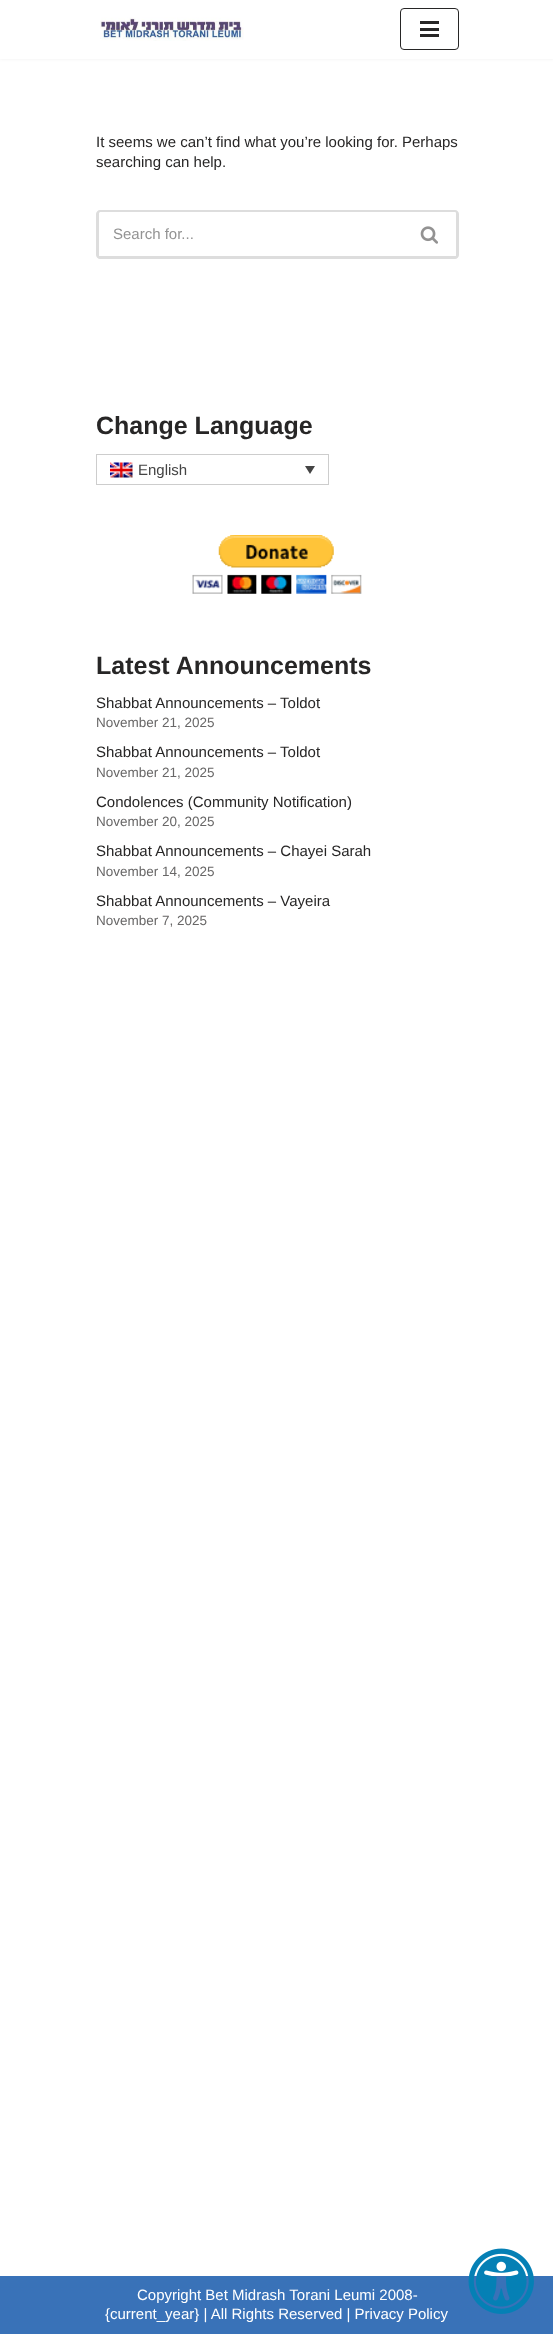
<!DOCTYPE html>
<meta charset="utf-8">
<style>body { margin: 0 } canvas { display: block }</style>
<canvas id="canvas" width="553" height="2334"></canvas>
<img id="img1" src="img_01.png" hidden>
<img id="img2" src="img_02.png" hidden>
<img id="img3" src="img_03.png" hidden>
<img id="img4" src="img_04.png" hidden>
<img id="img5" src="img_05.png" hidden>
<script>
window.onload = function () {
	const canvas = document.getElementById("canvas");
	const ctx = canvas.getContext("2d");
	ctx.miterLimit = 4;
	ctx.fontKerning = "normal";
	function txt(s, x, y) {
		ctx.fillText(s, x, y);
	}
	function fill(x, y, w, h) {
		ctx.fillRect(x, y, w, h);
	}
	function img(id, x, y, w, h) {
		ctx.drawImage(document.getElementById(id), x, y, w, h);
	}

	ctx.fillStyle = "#FFFFFF";
	fill(0, 0, 553, 2334);
	ctx.fillStyle = "rgba(0, 0, 0, 0.1)";
	ctx.filter = "blur(2px)";
	ctx.beginPath();
	ctx.rect(0, -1, 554, 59);
	ctx.fill();
	ctx.filter = "none";
	ctx.fillStyle = "#FFFFFF";
	fill(0, 0, 553, 59);
	img("img1", 100, 17, 144, 24);
	ctx.beginPath();
	ctx.roundRect(400.5, 8.5, 58, 41, 3.5);
	ctx.strokeStyle = "#272626";
	ctx.stroke();
	ctx.fillStyle = "#272626";
	fill(420, 21, 19, 3);
	fill(420, 28, 19, 3);
	fill(420, 34, 19, 3);
	ctx.fillStyle = "#DDDDDD";
	ctx.beginPath();
	ctx.moveTo(100, 210);
	ctx.lineTo(402, 210);
	ctx.lineTo(402, 259);
	ctx.lineTo(100, 259);
	ctx.bezierCurveTo(98, 259, 96, 257, 96, 255);
	ctx.lineTo(96, 214);
	ctx.bezierCurveTo(96, 212, 98, 210, 100, 210);
	ctx.closePath();
	ctx.moveTo(100, 212);
	ctx.lineTo(402, 212);
	ctx.lineTo(402, 256);
	ctx.lineTo(100, 256);
	ctx.bezierCurveTo(99, 256, 99, 256, 99, 255);
	ctx.lineTo(99, 213);
	ctx.closePath();
	ctx.fill("evenodd");
	ctx.beginPath();
	ctx.moveTo(402, 210);
	ctx.lineTo(455, 210);
	ctx.bezierCurveTo(457, 210, 459, 212, 459, 214);
	ctx.lineTo(459, 255);
	ctx.bezierCurveTo(459, 257, 457, 259, 455, 259);
	ctx.lineTo(402, 259);
	ctx.closePath();
	ctx.moveTo(402, 212);
	ctx.lineTo(455, 212);
	ctx.bezierCurveTo(456, 212, 456, 213, 456, 214);
	ctx.lineTo(456, 255);
	ctx.bezierCurveTo(456, 256, 456, 256, 455, 256);
	ctx.lineTo(402, 256);
	ctx.closePath();
	ctx.fill("evenodd");
	img("img2", 420, 226, 18, 18);
	ctx.strokeStyle = "#CDCDCD";
	ctx.strokeRect(96.5, 454.5, 232, 30);
	img("img3", 110, 462, 23, 16);
	ctx.fillStyle = "#444444";
	ctx.beginPath();
	ctx.moveTo(305, 466);
	ctx.lineTo(315, 466);
	ctx.lineTo(310, 474);
	ctx.closePath();
	ctx.fill();
	img("img4", 192, 535, 170, 59);
	ctx.fillStyle = "#3972B8";
	fill(0, 2276, 553, 58);
	img("img5", 468, 2248, 66, 66);
	ctx.font = "15px Liberation Sans";
	ctx.fillStyle = "#272626";
	txt("It seems we can’t find what you’re looking for. Perhaps", 96, 147);
	txt("searching can help.", 96, 167);
	ctx.fillStyle = "#939393";
	txt("Search for...", 113, 239);
	ctx.font = "bold 25px Liberation Sans";
	ctx.fillStyle = "#272626";
	txt("Change Language", 96, 434);
	ctx.font = "15px Liberation Sans";
	ctx.fillStyle = "#444444";
	txt("English", 138, 475);
	ctx.font = "bold 25px Liberation Sans";
	ctx.fillStyle = "#272626";
	txt("Latest Announcements", 96, 674);
	ctx.font = "15px Liberation Sans";
	txt("Shabbat Announcements – Toldot", 96, 708);
	ctx.font = "13.5px Liberation Sans";
	ctx.fillStyle = "#686767";
	txt("November 21, 2025", 96, 727);
	ctx.font = "15px Liberation Sans";
	ctx.fillStyle = "#272626";
	txt("Shabbat Announcements – Toldot", 96, 757);
	ctx.font = "13.5px Liberation Sans";
	ctx.fillStyle = "#686767";
	txt("November 21, 2025", 96, 777);
	ctx.font = "15px Liberation Sans";
	ctx.fillStyle = "#272626";
	txt("Condolences (Community Notification)", 96, 807);
	ctx.font = "13.5px Liberation Sans";
	ctx.fillStyle = "#686767";
	txt("November 20, 2025", 96, 826);
	ctx.font = "15px Liberation Sans";
	ctx.fillStyle = "#272626";
	txt("Shabbat Announcements – Chayei Sarah", 96, 856);
	ctx.font = "13.5px Liberation Sans";
	ctx.fillStyle = "#686767";
	txt("November 14, 2025", 96, 876);
	ctx.font = "15px Liberation Sans";
	ctx.fillStyle = "#272626";
	txt("Shabbat Announcements – Vayeira", 96, 906);
	ctx.font = "13.5px Liberation Sans";
	ctx.fillStyle = "#686767";
	txt("November 7, 2025", 96, 925);
	ctx.font = "15px Liberation Sans";
	ctx.fillStyle = "#FFFFFF";
	txt("Copyright Bet Midrash Torani Leumi 2008-", 137, 2300);
	txt("{current_year} | All Rights Reserved | Privacy Policy", 105, 2319);
};
</script>
